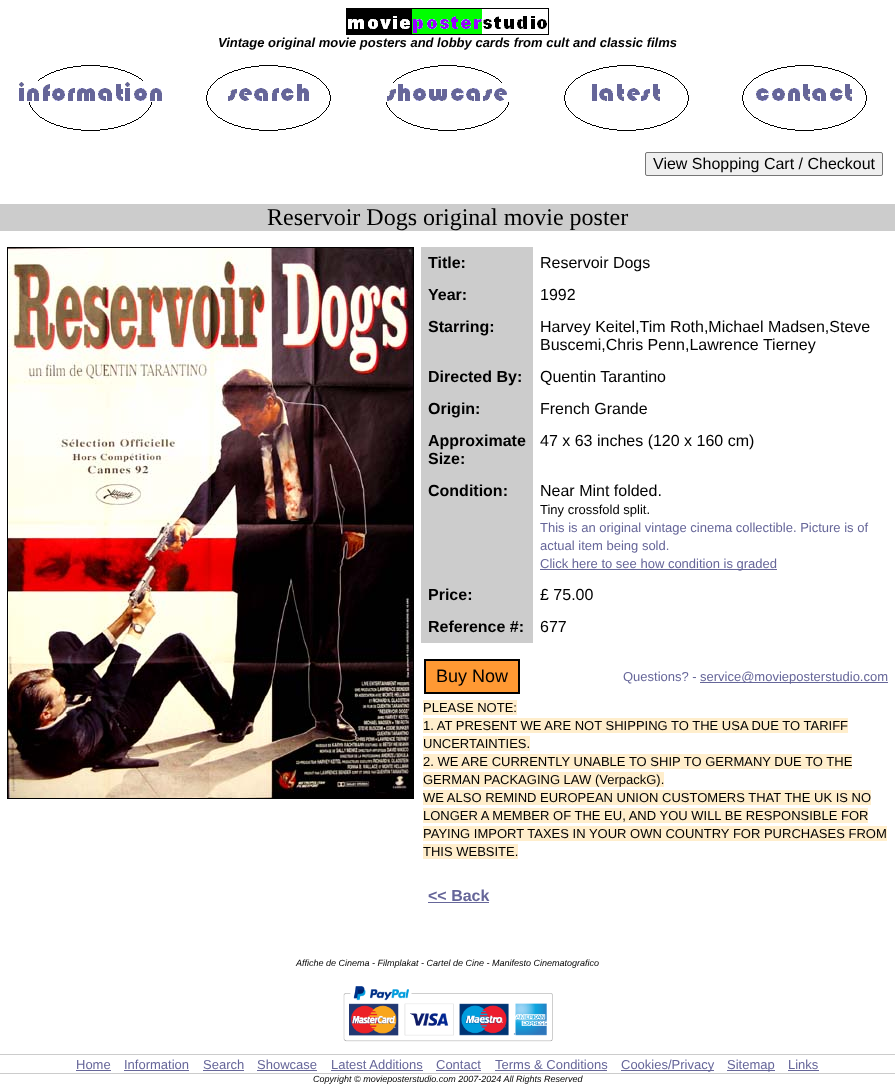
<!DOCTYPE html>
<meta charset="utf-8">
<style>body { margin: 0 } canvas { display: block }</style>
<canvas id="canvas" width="895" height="1089"></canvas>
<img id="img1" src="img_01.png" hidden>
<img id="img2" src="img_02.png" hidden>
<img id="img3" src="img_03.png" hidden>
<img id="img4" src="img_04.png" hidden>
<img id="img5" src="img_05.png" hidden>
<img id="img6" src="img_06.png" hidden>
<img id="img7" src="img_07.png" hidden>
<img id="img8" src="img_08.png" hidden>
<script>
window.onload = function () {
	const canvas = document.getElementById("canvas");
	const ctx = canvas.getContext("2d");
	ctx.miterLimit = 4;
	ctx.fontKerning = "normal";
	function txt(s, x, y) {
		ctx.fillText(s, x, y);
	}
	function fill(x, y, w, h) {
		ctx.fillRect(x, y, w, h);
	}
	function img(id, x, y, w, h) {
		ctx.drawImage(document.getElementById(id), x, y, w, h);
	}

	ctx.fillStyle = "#FFFFFF";
	fill(0, 0, 895, 1089);
	ctx.strokeStyle = "#000000";
	ctx.strokeRect(346.5, 8.5, 202, 26);
	img("img1", 347, 9, 200, 25);
	img("img2", 19, 65, 143, 66);
	img("img3", 206, 65, 125, 66);
	img("img4", 386, 65, 123, 66);
	img("img5", 564, 65, 125, 66);
	img("img6", 742, 65, 125, 66);
	ctx.fillStyle = "#EFEFEF";
	ctx.beginPath();
	ctx.roundRect(645.5, 152.5, 237, 23, 1.5);
	ctx.fill();
	ctx.strokeStyle = "#767676";
	ctx.stroke();
	ctx.fillStyle = "#CCCCCC";
	fill(0, 204, 895, 27);
	ctx.strokeStyle = "#000000";
	ctx.strokeRect(7.5, 247.5, 406, 551);
	img("img7", 8, 248, 405, 550);
	fill(421, 247, 112, 396);
	ctx.fillStyle = "#666699";
	fill(540, 569, 237, 1);
	ctx.fillStyle = "#FF9933";
	ctx.beginPath();
	ctx.rect(425, 660, 94, 33);
	ctx.fill();
	ctx.lineWidth = 2;
	ctx.stroke();
	ctx.fillStyle = "#666699";
	fill(700, 682, 188, 1);
	ctx.fillStyle = "#FFEECC";
	fill(423, 700, 94, 15);
	fill(423, 718, 425, 15);
	fill(423, 736, 107, 15);
	fill(423, 754, 429, 15);
	fill(423, 772, 241, 15);
	fill(423, 790, 448, 15);
	fill(423, 808, 445, 15);
	fill(423, 826, 464, 15);
	fill(423, 844, 95, 15);
	ctx.fillStyle = "#666699";
	fill(428, 902, 61, 1);
	img("img8", 343, 986, 210, 56);
	ctx.fillStyle = "#CCCCCC";
	fill(0, 1054, 895, 1);
	fill(0, 1073, 895, 1);
	ctx.fillStyle = "#666699";
	fill(76, 1070, 35, 1);
	fill(124, 1070, 65, 1);
	fill(203, 1070, 41, 1);
	fill(257, 1070, 60, 1);
	fill(331, 1070, 92, 1);
	fill(436, 1070, 45, 1);
	fill(495, 1070, 112, 1);
	fill(621, 1070, 93, 1);
	fill(727, 1070, 48, 1);
	fill(788, 1070, 31, 1);
	ctx.font = "italic bold 13px Liberation Sans";
	ctx.fillStyle = "#000000";
	txt("Vintage original movie posters and lobby cards from cult and classic films", 218, 47);
	ctx.font = "16px Liberation Sans";
	txt("View Shopping Cart / Checkout", 653, 169);
	ctx.font = "24px Liberation Serif";
	txt("Reservoir Dogs original movie poster", 267, 225);
	ctx.font = "bold 16px Liberation Sans";
	txt("Title:", 428, 268);
	ctx.font = "16px Liberation Sans";
	txt("Reservoir Dogs", 540, 268);
	ctx.font = "bold 16px Liberation Sans";
	txt("Year:", 428, 300);
	ctx.font = "16px Liberation Sans";
	txt("1992", 540, 300);
	ctx.font = "bold 16px Liberation Sans";
	txt("Starring:", 428, 332);
	ctx.font = "16px Liberation Sans";
	txt("Harvey Keitel,Tim Roth,Michael Madsen,Steve", 540, 332);
	txt("Buscemi,Chris Penn,Lawrence Tierney", 540, 350);
	ctx.font = "bold 16px Liberation Sans";
	txt("Directed By:", 428, 382);
	ctx.font = "16px Liberation Sans";
	txt("Quentin Tarantino", 540, 382);
	ctx.font = "bold 16px Liberation Sans";
	txt("Origin:", 428, 414);
	ctx.font = "16px Liberation Sans";
	txt("French Grande", 540, 414);
	ctx.font = "bold 16px Liberation Sans";
	txt("Approximate", 428, 446);
	txt("Size:", 428, 464);
	ctx.font = "16px Liberation Sans";
	txt("47 x 63 inches (120 x 160 cm)", 540, 446);
	ctx.font = "bold 16px Liberation Sans";
	txt("Condition:", 428, 496);
	ctx.font = "16px Liberation Sans";
	txt("Near Mint folded.", 540, 496);
	ctx.font = "13px Liberation Sans";
	txt("Tiny crossfold split.", 540, 514);
	ctx.fillStyle = "#666699";
	txt("This is an original vintage cinema collectible. Picture is of", 540, 532);
	txt("actual item being sold.", 540, 550);
	txt("Click here to see how condition is graded", 540, 568);
	ctx.font = "bold 16px Liberation Sans";
	ctx.fillStyle = "#000000";
	txt("Price:", 428, 600);
	ctx.font = "16px Liberation Sans";
	txt("£ 75.00", 540, 600);
	ctx.font = "bold 16px Liberation Sans";
	txt("Reference #:", 428, 632);
	ctx.font = "16px Liberation Sans";
	txt("677", 540, 632);
	ctx.font = "18px Liberation Sans";
	txt("Buy Now", 436, 682);
	ctx.font = "13px Liberation Sans";
	ctx.fillStyle = "#666699";
	txt("Questions? -", 623, 681);
	txt("service@movieposterstudio.com", 700, 681);
	ctx.fillStyle = "#000000";
	txt("PLEASE NOTE:", 423, 712);
	txt("1. AT PRESENT WE ARE NOT SHIPPING TO THE USA DUE TO TARIFF", 423, 730);
	txt("UNCERTAINTIES.", 423, 748);
	txt("2. WE ARE CURRENTLY UNABLE TO SHIP TO GERMANY DUE TO THE", 423, 766);
	txt("GERMAN PACKAGING LAW (VerpackG).", 423, 784);
	txt("WE ALSO REMIND EUROPEAN UNION CUSTOMERS THAT THE UK IS NO", 423, 802);
	txt("LONGER A MEMBER OF THE EU, AND YOU WILL BE RESPONSIBLE FOR", 423, 820);
	txt("PAYING IMPORT TAXES IN YOUR OWN COUNTRY FOR PURCHASES FROM", 423, 838);
	txt("THIS WEBSITE.", 423, 856);
	ctx.font = "bold 16px Liberation Sans";
	ctx.fillStyle = "#666699";
	txt("<< Back", 428, 901);
	ctx.font = "italic 9px Liberation Sans";
	ctx.fillStyle = "#000000";
	txt("Affiche de Cinema - Filmplakat - Cartel de Cine - Manifesto Cinematografico", 296, 966);
	ctx.font = "13px Liberation Sans";
	ctx.fillStyle = "#666699";
	txt("Home", 76, 1069);
	txt("Information", 124, 1069);
	txt("Search", 203, 1069);
	txt("Showcase", 257, 1069);
	txt("Latest Additions", 331, 1069);
	txt("Contact", 436, 1069);
	txt("Terms & Conditions", 495, 1069);
	txt("Cookies/Privacy", 621, 1069);
	txt("Sitemap", 727, 1069);
	txt("Links", 788, 1069);
	ctx.font = "italic 9px Liberation Sans";
	ctx.fillStyle = "#000000";
	txt("Copyright © movieposterstudio.com 2007-2024 All Rights Reserved", 313, 1082);
};
</script>
